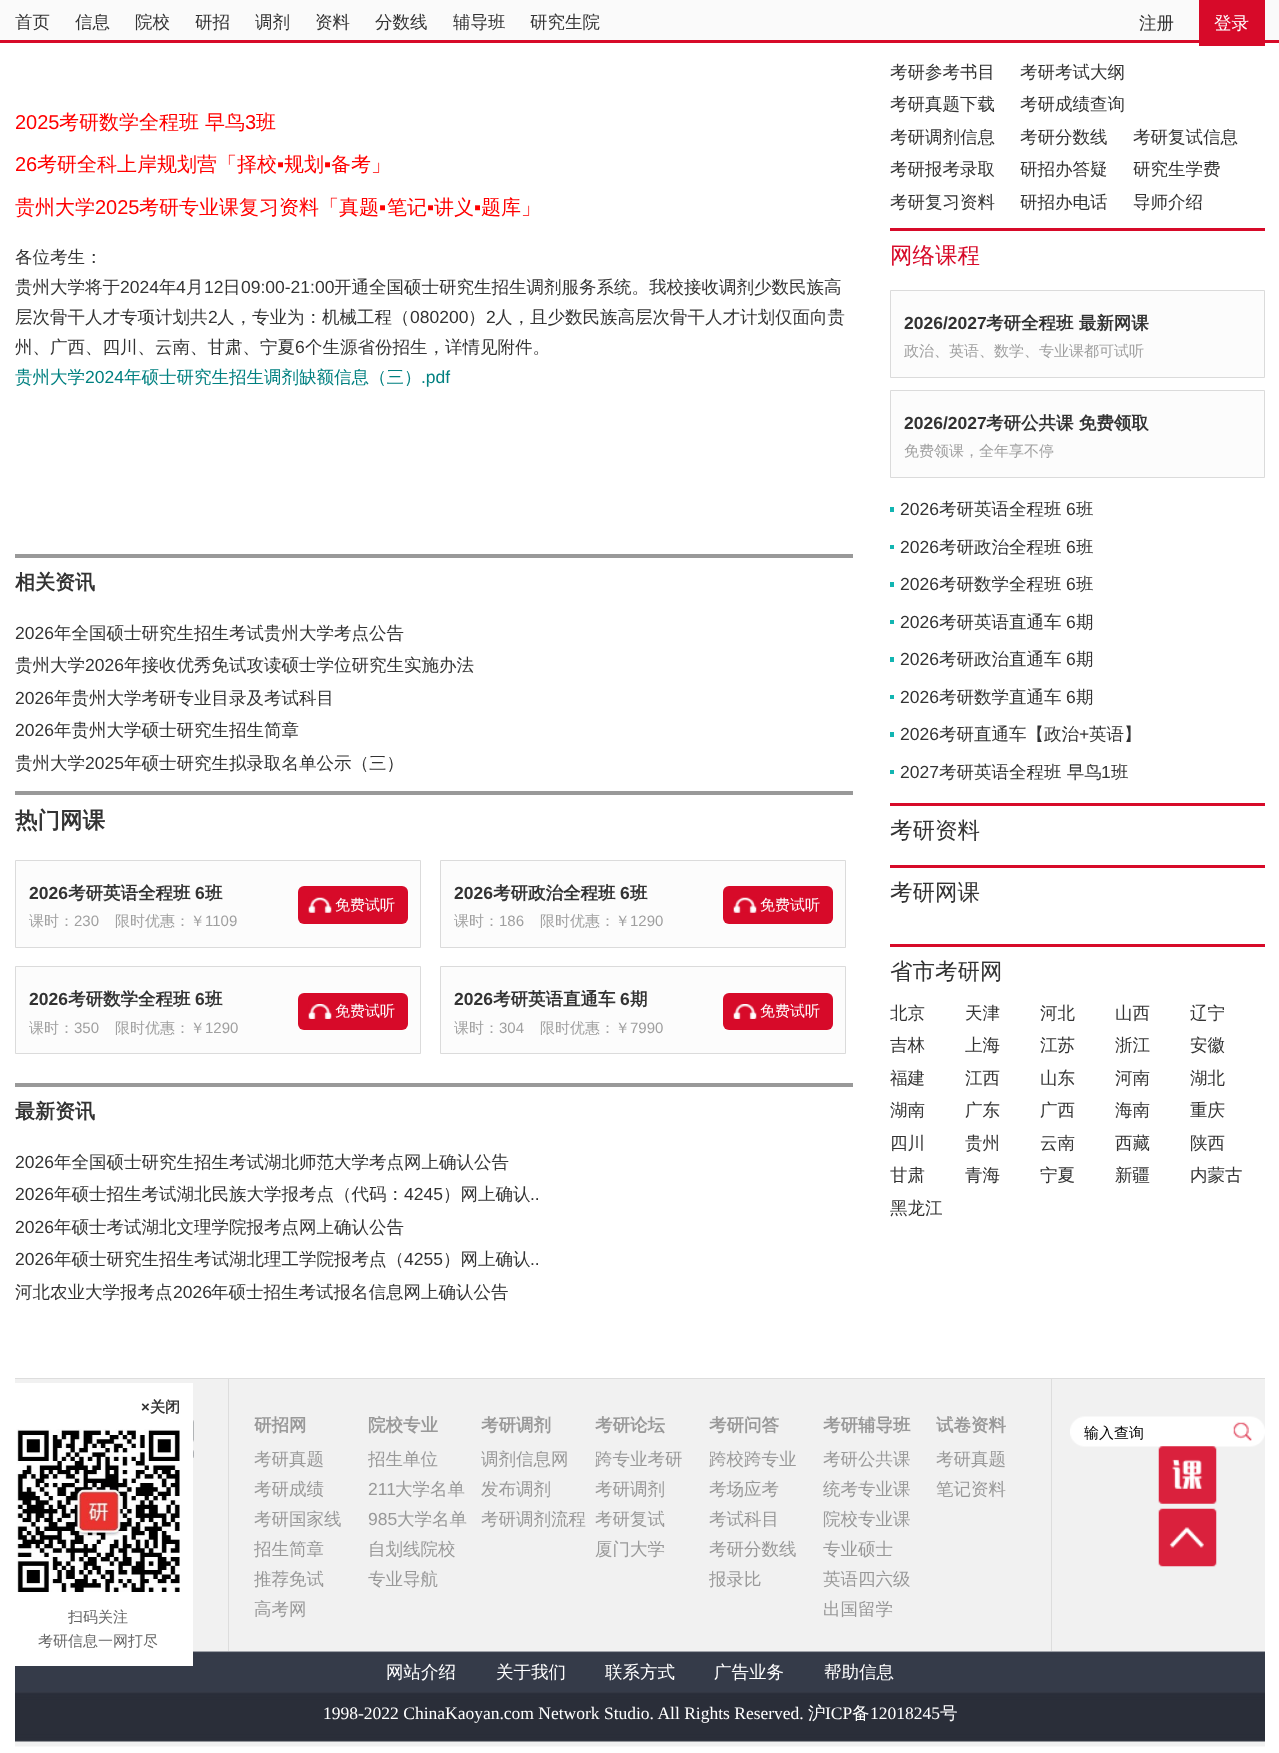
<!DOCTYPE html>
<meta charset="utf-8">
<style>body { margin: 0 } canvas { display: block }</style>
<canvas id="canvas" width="1279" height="1753"></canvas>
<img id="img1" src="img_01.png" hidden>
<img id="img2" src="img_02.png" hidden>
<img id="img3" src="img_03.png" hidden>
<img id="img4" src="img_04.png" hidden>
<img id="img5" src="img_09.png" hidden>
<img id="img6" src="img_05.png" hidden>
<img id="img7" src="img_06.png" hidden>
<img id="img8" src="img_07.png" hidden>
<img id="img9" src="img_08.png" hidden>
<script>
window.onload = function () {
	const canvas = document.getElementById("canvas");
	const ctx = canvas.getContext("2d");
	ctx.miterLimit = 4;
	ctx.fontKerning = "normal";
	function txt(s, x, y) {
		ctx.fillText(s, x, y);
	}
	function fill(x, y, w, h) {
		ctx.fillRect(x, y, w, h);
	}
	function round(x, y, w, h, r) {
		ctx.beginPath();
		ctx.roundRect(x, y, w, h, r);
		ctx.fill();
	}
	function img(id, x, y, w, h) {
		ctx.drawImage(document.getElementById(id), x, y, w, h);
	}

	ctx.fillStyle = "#FFFFFF";
	fill(0, 0, 1279, 1753);
	ctx.fillStyle = "#FAFAFA";
	fill(0, 0, 1279, 40);
	ctx.fillStyle = "#D70A29";
	fill(0, 40, 1279, 3);
	fill(1199, 0, 66, 40);
	fill(1199, 43, 66, 3);
	ctx.fillStyle = "#999999";
	fill(15, 554, 838, 4);
	fill(15, 791, 838, 4);
	ctx.fillStyle = "#FCFCFC";
	ctx.beginPath();
	ctx.rect(15.5, 860.5, 405, 87);
	ctx.fill();
	ctx.strokeStyle = "#DBDBDB";
	ctx.stroke();
	ctx.fillStyle = "#D70A29";
	round(298, 886, 110, 38, 6);
	img("img1", 308, 897, 24, 16);
	ctx.fillStyle = "#FCFCFC";
	ctx.beginPath();
	ctx.rect(440.5, 860.5, 405, 87);
	ctx.fill();
	ctx.stroke();
	ctx.fillStyle = "#D70A29";
	round(723, 886, 110, 38, 6);
	img("img2", 733, 897, 24, 16);
	ctx.fillStyle = "#FCFCFC";
	ctx.beginPath();
	ctx.rect(15.5, 966.5, 405, 87);
	ctx.fill();
	ctx.stroke();
	ctx.fillStyle = "#D70A29";
	round(298, 993, 110, 37, 6);
	img("img3", 308, 1004, 24, 15);
	ctx.fillStyle = "#FCFCFC";
	ctx.beginPath();
	ctx.rect(440.5, 966.5, 405, 87);
	ctx.fill();
	ctx.stroke();
	ctx.fillStyle = "#D70A29";
	round(723, 993, 110, 37, 6);
	img("img4", 733, 1004, 24, 15);
	ctx.fillStyle = "#999999";
	fill(15, 1083, 838, 4);
	ctx.fillStyle = "#D70A29";
	fill(890, 228, 375, 3);
	ctx.fillStyle = "#FCFCFC";
	ctx.beginPath();
	ctx.rect(890.5, 290.5, 374, 87);
	ctx.fill();
	ctx.stroke();
	ctx.beginPath();
	ctx.rect(890.5, 390.5, 374, 87);
	ctx.fill();
	ctx.stroke();
	ctx.fillStyle = "#12B5B2";
	fill(890, 507, 4, 5);
	fill(890, 545, 4, 4);
	fill(890, 582, 4, 5);
	fill(890, 620, 4, 4);
	fill(890, 657, 4, 5);
	fill(890, 695, 4, 4);
	fill(890, 732, 4, 5);
	fill(890, 770, 4, 4);
	ctx.fillStyle = "#D70A29";
	fill(890, 803, 375, 3);
	fill(890, 865, 375, 3);
	fill(890, 944, 375, 3);
	ctx.fillStyle = "#F1F1F1";
	fill(15, 1379, 1250, 272);
	img("img5", 15, 1651, 1250, 96);
	ctx.fillStyle = "#FFFFFF";
	fill(15, 1383, 178, 283);
	img("img6", 16, 1429, 164, 163);
	ctx.fillStyle = "#DDDDDD";
	fill(15, 1378, 1250, 1);
	img("img7", 193, 1420, 1, 38);
	fill(1051, 1379, 1, 272);
	fill(228, 1379, 1, 272);
	img("img8", 1070, 1416, 195, 31);
	img("img9", 1158, 1446, 59, 121);
	ctx.font = "500 17.5px WenQuanYi Zen Hei";
	ctx.fillStyle = "#333333";
	txt("首页", 15, 28);
	txt("信息", 75, 28);
	txt("院校", 135, 28);
	txt("研招", 195, 28);
	txt("调剂", 255, 28);
	txt("资料", 315, 28);
	txt("分数线", 375, 28);
	txt("辅导班", 453, 28);
	txt("研究生院", 530, 28);
	txt("注册", 1139, 29);
	ctx.fillStyle = "#FFFFFF";
	txt("登录", 1214, 29);
	ctx.font = "20px Liberation Sans";
	ctx.fillStyle = "#FF0000";
	txt("2025", 15, 129);
	ctx.font = "500 20px WenQuanYi Zen Hei";
	txt("考研数学全程班 早鸟", 59, 129);
	ctx.font = "20px Liberation Sans";
	txt("3", 245, 129);
	ctx.font = "500 20px WenQuanYi Zen Hei";
	txt("班", 256, 129);
	ctx.font = "20px Liberation Sans";
	txt("26", 15, 171);
	ctx.font = "500 20px WenQuanYi Zen Hei";
	txt("考研全科上岸规划营「择校", 37, 171);
	ctx.font = "20px Liberation Sans";
	txt("▪", 277, 171);
	ctx.font = "500 20px WenQuanYi Zen Hei";
	txt("规划", 284, 171);
	ctx.font = "20px Liberation Sans";
	txt("▪", 324, 171);
	ctx.font = "500 20px WenQuanYi Zen Hei";
	txt("备考」", 331, 171);
	txt("贵州大学", 15, 214);
	ctx.font = "20px Liberation Sans";
	txt("2025", 95, 214);
	ctx.font = "500 20px WenQuanYi Zen Hei";
	txt("考研专业课复习资料「真题", 139, 214);
	ctx.font = "20px Liberation Sans";
	txt("▪", 379, 214);
	ctx.font = "500 20px WenQuanYi Zen Hei";
	txt("笔记", 387, 214);
	ctx.font = "20px Liberation Sans";
	txt("▪", 427, 214);
	ctx.font = "500 20px WenQuanYi Zen Hei";
	txt("讲义", 434, 214);
	ctx.font = "20px Liberation Sans";
	txt("▪", 474, 214);
	ctx.font = "500 20px WenQuanYi Zen Hei";
	txt("题库」", 481, 214);
	ctx.font = "500 17.5px WenQuanYi Zen Hei";
	ctx.fillStyle = "#333333";
	txt("各位考生：", 15, 263);
	txt("贵州大学将于", 15, 293);
	ctx.font = "17.5px Liberation Sans";
	txt("2024", 120, 293);
	ctx.font = "500 17.5px WenQuanYi Zen Hei";
	txt("年", 159, 293);
	ctx.font = "17.5px Liberation Sans";
	txt("4", 176, 293);
	ctx.font = "500 17.5px WenQuanYi Zen Hei";
	txt("月", 186, 293);
	ctx.font = "17.5px Liberation Sans";
	txt("12", 204, 293);
	ctx.font = "500 17.5px WenQuanYi Zen Hei";
	txt("日", 223, 293);
	ctx.font = "17.5px Liberation Sans";
	txt("09:00-21:00", 241, 293);
	ctx.font = "500 17.5px WenQuanYi Zen Hei";
	txt("开通全国硕士研究生招生调剂服务系统。我校接收调剂少数民族高", 334, 293);
	txt("层次骨干人才专项计划共", 15, 323);
	ctx.font = "17.5px Liberation Sans";
	txt("2", 208, 323);
	ctx.font = "500 17.5px WenQuanYi Zen Hei";
	txt("人，专业为：机械工程（", 217, 323);
	ctx.font = "17.5px Liberation Sans";
	txt("080200", 410, 323);
	ctx.font = "500 17.5px WenQuanYi Zen Hei";
	txt("）", 468, 323);
	ctx.font = "17.5px Liberation Sans";
	txt("2", 486, 323);
	ctx.font = "500 17.5px WenQuanYi Zen Hei";
	txt("人，且少数民族高层次骨干人才计划仅面向贵", 495, 323);
	txt("州、广西、四川、云南、甘肃、宁夏", 15, 353);
	ctx.font = "17.5px Liberation Sans";
	txt("6", 295, 353);
	ctx.font = "500 17.5px WenQuanYi Zen Hei";
	txt("个生源省份招生，详情见附件。", 305, 353);
	ctx.fillStyle = "#008080";
	txt("贵州大学", 15, 383);
	ctx.font = "17.5px Liberation Sans";
	txt("2024", 85, 383);
	ctx.font = "500 17.5px WenQuanYi Zen Hei";
	txt("年硕士研究生招生调剂缺额信息（三）", 124, 383);
	ctx.font = "17.5px Liberation Sans";
	txt(".pdf", 421, 383);
	ctx.font = "bold 20px WenQuanYi Zen Hei";
	ctx.fillStyle = "#333333";
	txt("相关资讯", 15, 589);
	ctx.font = "17.5px Liberation Sans";
	txt("2026", 15, 639);
	ctx.font = "500 17.5px WenQuanYi Zen Hei";
	txt("年全国硕士研究生招生考试贵州大学考点公告", 54, 639);
	txt("贵州大学", 15, 671);
	ctx.font = "17.5px Liberation Sans";
	txt("2026", 85, 671);
	ctx.font = "500 17.5px WenQuanYi Zen Hei";
	txt("年接收优秀免试攻读硕士学位研究生实施办法", 124, 671);
	ctx.font = "17.5px Liberation Sans";
	txt("2026", 15, 704);
	ctx.font = "500 17.5px WenQuanYi Zen Hei";
	txt("年贵州大学考研专业目录及考试科目", 54, 704);
	ctx.font = "17.5px Liberation Sans";
	txt("2026", 15, 736);
	ctx.font = "500 17.5px WenQuanYi Zen Hei";
	txt("年贵州大学硕士研究生招生简章", 54, 736);
	txt("贵州大学", 15, 769);
	ctx.font = "17.5px Liberation Sans";
	txt("2025", 85, 769);
	ctx.font = "500 17.5px WenQuanYi Zen Hei";
	txt("年硕士研究生拟录取名单公示（三）", 124, 769);
	ctx.font = "bold 22.5px WenQuanYi Zen Hei";
	txt("热门网课", 15, 828);
	ctx.font = "bold 17.5px Liberation Sans";
	txt("2026", 29, 899);
	ctx.font = "bold 17.5px WenQuanYi Zen Hei";
	txt("考研英语全程班", 68, 899);
	ctx.font = "bold 17.5px Liberation Sans";
	txt("6", 195, 899);
	ctx.font = "bold 17.5px WenQuanYi Zen Hei";
	txt("班", 205, 899);
	ctx.font = "500 15px WenQuanYi Zen Hei";
	ctx.fillStyle = "#FFFFFF";
	txt("免费试听", 335, 910);
	ctx.fillStyle = "#9F9F9F";
	txt("课时：", 29, 926);
	ctx.font = "15px Liberation Sans";
	txt("230", 74, 926);
	ctx.font = "500 15px WenQuanYi Zen Hei";
	txt("限时优惠：￥", 115, 926);
	ctx.font = "15px Liberation Sans";
	txt("1109", 205, 926);
	ctx.font = "bold 17.5px Liberation Sans";
	ctx.fillStyle = "#333333";
	txt("2026", 454, 899);
	ctx.font = "bold 17.5px WenQuanYi Zen Hei";
	txt("考研政治全程班", 493, 899);
	ctx.font = "bold 17.5px Liberation Sans";
	txt("6", 620, 899);
	ctx.font = "bold 17.5px WenQuanYi Zen Hei";
	txt("班", 630, 899);
	ctx.font = "500 15px WenQuanYi Zen Hei";
	ctx.fillStyle = "#FFFFFF";
	txt("免费试听", 760, 910);
	ctx.fillStyle = "#9F9F9F";
	txt("课时：", 454, 926);
	ctx.font = "15px Liberation Sans";
	txt("186", 499, 926);
	ctx.font = "500 15px WenQuanYi Zen Hei";
	txt("限时优惠：￥", 540, 926);
	ctx.font = "15px Liberation Sans";
	txt("1290", 630, 926);
	ctx.font = "bold 17.5px Liberation Sans";
	ctx.fillStyle = "#333333";
	txt("2026", 29, 1005);
	ctx.font = "bold 17.5px WenQuanYi Zen Hei";
	txt("考研数学全程班", 68, 1005);
	ctx.font = "bold 17.5px Liberation Sans";
	txt("6", 195, 1005);
	ctx.font = "bold 17.5px WenQuanYi Zen Hei";
	txt("班", 205, 1005);
	ctx.font = "500 15px WenQuanYi Zen Hei";
	ctx.fillStyle = "#FFFFFF";
	txt("免费试听", 335, 1016);
	ctx.fillStyle = "#9F9F9F";
	txt("课时：", 29, 1033);
	ctx.font = "15px Liberation Sans";
	txt("350", 74, 1033);
	ctx.font = "500 15px WenQuanYi Zen Hei";
	txt("限时优惠：￥", 115, 1033);
	ctx.font = "15px Liberation Sans";
	txt("1290", 205, 1033);
	ctx.font = "bold 17.5px Liberation Sans";
	ctx.fillStyle = "#333333";
	txt("2026", 454, 1005);
	ctx.font = "bold 17.5px WenQuanYi Zen Hei";
	txt("考研英语直通车", 493, 1005);
	ctx.font = "bold 17.5px Liberation Sans";
	txt("6", 620, 1005);
	ctx.font = "bold 17.5px WenQuanYi Zen Hei";
	txt("期", 630, 1005);
	ctx.font = "500 15px WenQuanYi Zen Hei";
	ctx.fillStyle = "#FFFFFF";
	txt("免费试听", 760, 1016);
	ctx.fillStyle = "#9F9F9F";
	txt("课时：", 454, 1033);
	ctx.font = "15px Liberation Sans";
	txt("304", 499, 1033);
	ctx.font = "500 15px WenQuanYi Zen Hei";
	txt("限时优惠：￥", 540, 1033);
	ctx.font = "15px Liberation Sans";
	txt("7990", 630, 1033);
	ctx.font = "bold 20px WenQuanYi Zen Hei";
	ctx.fillStyle = "#333333";
	txt("最新资讯", 15, 1118);
	ctx.font = "17.5px Liberation Sans";
	txt("2026", 15, 1168);
	ctx.font = "500 17.5px WenQuanYi Zen Hei";
	txt("年全国硕士研究生招生考试湖北师范大学考点网上确认公告", 54, 1168);
	ctx.font = "17.5px Liberation Sans";
	txt("2026", 15, 1200);
	ctx.font = "500 17.5px WenQuanYi Zen Hei";
	txt("年硕士招生考试湖北民族大学报考点（代码：", 54, 1200);
	ctx.font = "17.5px Liberation Sans";
	txt("4245", 404, 1200);
	ctx.font = "500 17.5px WenQuanYi Zen Hei";
	txt("）网上确认", 443, 1200);
	ctx.font = "17.5px Liberation Sans";
	txt("..", 530, 1200);
	txt("2026", 15, 1233);
	ctx.font = "500 17.5px WenQuanYi Zen Hei";
	txt("年硕士考试湖北文理学院报考点网上确认公告", 54, 1233);
	ctx.font = "17.5px Liberation Sans";
	txt("2026", 15, 1265);
	ctx.font = "500 17.5px WenQuanYi Zen Hei";
	txt("年硕士研究生招生考试湖北理工学院报考点（", 54, 1265);
	ctx.font = "17.5px Liberation Sans";
	txt("4255", 404, 1265);
	ctx.font = "500 17.5px WenQuanYi Zen Hei";
	txt("）网上确认", 443, 1265);
	ctx.font = "17.5px Liberation Sans";
	txt("..", 530, 1265);
	ctx.font = "500 17.5px WenQuanYi Zen Hei";
	txt("河北农业大学报考点", 15, 1298);
	ctx.font = "17.5px Liberation Sans";
	txt("2026", 173, 1298);
	ctx.font = "500 17.5px WenQuanYi Zen Hei";
	txt("年硕士招生考试报名信息网上确认公告", 211, 1298);
	txt("考研参考书目", 890, 78);
	txt("考研考试大纲", 1020, 78);
	txt("考研真题下载", 890, 110);
	txt("考研成绩查询", 1020, 110);
	txt("考研调剂信息", 890, 143);
	txt("考研分数线", 1020, 143);
	txt("考研复试信息", 1133, 143);
	txt("考研报考录取", 890, 175);
	txt("研招办答疑", 1020, 175);
	txt("研究生学费", 1133, 175);
	txt("考研复习资料", 890, 208);
	txt("研招办电话", 1020, 208);
	txt("导师介绍", 1133, 208);
	ctx.font = "500 22.5px WenQuanYi Zen Hei";
	ctx.fillStyle = "#D70A29";
	txt("网络课程", 890, 263);
	ctx.font = "bold 17.5px Liberation Sans";
	ctx.fillStyle = "#333333";
	txt("2026/2027", 904, 329);
	ctx.font = "bold 17.5px WenQuanYi Zen Hei";
	txt("考研全程班 最新网课", 986, 329);
	ctx.font = "500 15px WenQuanYi Zen Hei";
	ctx.fillStyle = "#9F9F9F";
	txt("政治、英语、数学、专业课都可试听", 904, 356);
	ctx.font = "bold 17.5px Liberation Sans";
	ctx.fillStyle = "#333333";
	txt("2026/2027", 904, 429);
	ctx.font = "bold 17.5px WenQuanYi Zen Hei";
	txt("考研公共课 免费领取", 986, 429);
	ctx.font = "500 15px WenQuanYi Zen Hei";
	ctx.fillStyle = "#9F9F9F";
	txt("免费领课，全年享不停", 904, 456);
	ctx.font = "17.5px Liberation Sans";
	ctx.fillStyle = "#333333";
	txt("2026", 900, 515);
	ctx.font = "500 17.5px WenQuanYi Zen Hei";
	txt("考研英语全程班", 939, 515);
	ctx.font = "17.5px Liberation Sans";
	txt("6", 1066, 515);
	ctx.font = "500 17.5px WenQuanYi Zen Hei";
	txt("班", 1076, 515);
	ctx.font = "17.5px Liberation Sans";
	txt("2026", 900, 553);
	ctx.font = "500 17.5px WenQuanYi Zen Hei";
	txt("考研政治全程班", 939, 553);
	ctx.font = "17.5px Liberation Sans";
	txt("6", 1066, 553);
	ctx.font = "500 17.5px WenQuanYi Zen Hei";
	txt("班", 1076, 553);
	ctx.font = "17.5px Liberation Sans";
	txt("2026", 900, 590);
	ctx.font = "500 17.5px WenQuanYi Zen Hei";
	txt("考研数学全程班", 939, 590);
	ctx.font = "17.5px Liberation Sans";
	txt("6", 1066, 590);
	ctx.font = "500 17.5px WenQuanYi Zen Hei";
	txt("班", 1076, 590);
	ctx.font = "17.5px Liberation Sans";
	txt("2026", 900, 628);
	ctx.font = "500 17.5px WenQuanYi Zen Hei";
	txt("考研英语直通车", 939, 628);
	ctx.font = "17.5px Liberation Sans";
	txt("6", 1066, 628);
	ctx.font = "500 17.5px WenQuanYi Zen Hei";
	txt("期", 1076, 628);
	ctx.font = "17.5px Liberation Sans";
	txt("2026", 900, 665);
	ctx.font = "500 17.5px WenQuanYi Zen Hei";
	txt("考研政治直通车", 939, 665);
	ctx.font = "17.5px Liberation Sans";
	txt("6", 1066, 665);
	ctx.font = "500 17.5px WenQuanYi Zen Hei";
	txt("期", 1076, 665);
	ctx.font = "17.5px Liberation Sans";
	txt("2026", 900, 703);
	ctx.font = "500 17.5px WenQuanYi Zen Hei";
	txt("考研数学直通车", 939, 703);
	ctx.font = "17.5px Liberation Sans";
	txt("6", 1066, 703);
	ctx.font = "500 17.5px WenQuanYi Zen Hei";
	txt("期", 1076, 703);
	ctx.font = "17.5px Liberation Sans";
	txt("2026", 900, 740);
	ctx.font = "500 17.5px WenQuanYi Zen Hei";
	txt("考研直通车【政治", 939, 740);
	ctx.font = "17.5px Liberation Sans";
	txt("+", 1079, 740);
	ctx.font = "500 17.5px WenQuanYi Zen Hei";
	txt("英语】", 1089, 740);
	ctx.font = "17.5px Liberation Sans";
	txt("2027", 900, 778);
	ctx.font = "500 17.5px WenQuanYi Zen Hei";
	txt("考研英语全程班 早鸟", 939, 778);
	ctx.font = "17.5px Liberation Sans";
	txt("1", 1101, 778);
	ctx.font = "500 17.5px WenQuanYi Zen Hei";
	txt("班", 1111, 778);
	ctx.font = "500 22.5px WenQuanYi Zen Hei";
	txt("考研资料", 890, 838);
	txt("考研网课", 890, 900);
	txt("省市考研网", 890, 979);
	ctx.font = "500 17.5px WenQuanYi Zen Hei";
	txt("北京", 890, 1019);
	txt("天津", 965, 1019);
	txt("河北", 1040, 1019);
	txt("山西", 1115, 1019);
	txt("辽宁", 1190, 1019);
	txt("吉林", 890, 1051);
	txt("上海", 965, 1051);
	txt("江苏", 1040, 1051);
	txt("浙江", 1115, 1051);
	txt("安徽", 1190, 1051);
	txt("福建", 890, 1084);
	txt("江西", 965, 1084);
	txt("山东", 1040, 1084);
	txt("河南", 1115, 1084);
	txt("湖北", 1190, 1084);
	txt("湖南", 890, 1116);
	txt("广东", 965, 1116);
	txt("广西", 1040, 1116);
	txt("海南", 1115, 1116);
	txt("重庆", 1190, 1116);
	txt("四川", 890, 1149);
	txt("贵州", 965, 1149);
	txt("云南", 1040, 1149);
	txt("西藏", 1115, 1149);
	txt("陕西", 1190, 1149);
	txt("甘肃", 890, 1181);
	txt("青海", 965, 1181);
	txt("宁夏", 1040, 1181);
	txt("新疆", 1115, 1181);
	txt("内蒙古", 1190, 1181);
	txt("黑龙江", 890, 1214);
	ctx.font = "bold 15px Liberation Sans";
	txt("×", 141, 1412);
	ctx.font = "bold 15px WenQuanYi Zen Hei";
	txt("关闭", 150, 1412);
	ctx.font = "500 15px WenQuanYi Zen Hei";
	ctx.fillStyle = "#666666";
	txt("扫码关注", 68, 1622);
	txt("考研信息一网打尽", 38, 1646);
	ctx.font = "bold 17.5px WenQuanYi Zen Hei";
	ctx.fillStyle = "#999999";
	txt("研招网", 254, 1431);
	ctx.font = "500 17.5px WenQuanYi Zen Hei";
	txt("考研真题", 254, 1465);
	txt("考研成绩", 254, 1495);
	txt("考研国家线", 254, 1525);
	txt("招生简章", 254, 1555);
	txt("推荐免试", 254, 1585);
	txt("高考网", 254, 1615);
	ctx.font = "bold 17.5px WenQuanYi Zen Hei";
	txt("院校专业", 368, 1431);
	ctx.save();
	ctx.beginPath();
	ctx.rect(368, 1406, 113, 188);
	ctx.clip();
	ctx.font = "500 17.5px WenQuanYi Zen Hei";
	txt("招生单位", 368, 1465);
	ctx.restore();
	ctx.font = "17.5px Liberation Sans";
	txt("211", 368, 1495);
	ctx.font = "500 17.5px WenQuanYi Zen Hei";
	txt("大学名单", 395, 1495);
	ctx.font = "17.5px Liberation Sans";
	txt("985", 368, 1525);
	ctx.font = "500 17.5px WenQuanYi Zen Hei";
	txt("大学名单", 397, 1525);
	txt("自划线院校", 368, 1555);
	txt("专业导航", 368, 1585);
	ctx.font = "bold 17.5px WenQuanYi Zen Hei";
	txt("考研调剂", 481, 1431);
	ctx.font = "500 17.5px WenQuanYi Zen Hei";
	txt("调剂信息网", 481, 1465);
	txt("发布调剂", 481, 1495);
	txt("考研调剂流程", 481, 1525);
	ctx.font = "bold 17.5px WenQuanYi Zen Hei";
	txt("考研论坛", 595, 1431);
	ctx.font = "500 17.5px WenQuanYi Zen Hei";
	txt("跨专业考研", 595, 1465);
	txt("考研调剂", 595, 1495);
	txt("考研复试", 595, 1525);
	txt("厦门大学", 595, 1555);
	ctx.font = "bold 17.5px WenQuanYi Zen Hei";
	txt("考研问答", 709, 1431);
	ctx.font = "500 17.5px WenQuanYi Zen Hei";
	txt("跨校跨专业", 709, 1465);
	txt("考场应考", 709, 1495);
	txt("考试科目", 709, 1525);
	txt("考研分数线", 709, 1555);
	txt("报录比", 709, 1585);
	ctx.font = "bold 17.5px WenQuanYi Zen Hei";
	txt("考研辅导班", 823, 1431);
	ctx.font = "500 17.5px WenQuanYi Zen Hei";
	txt("考研公共课", 823, 1465);
	ctx.save();
	ctx.beginPath();
	ctx.rect(823, 1406, 113, 218);
	ctx.clip();
	txt("统考专业课", 823, 1495);
	ctx.restore();
	txt("院校专业课", 823, 1525);
	txt("专业硕士", 823, 1555);
	txt("英语四六级", 823, 1585);
	txt("出国留学", 823, 1615);
	ctx.font = "bold 17.5px WenQuanYi Zen Hei";
	txt("试卷资料", 936, 1431);
	ctx.font = "500 17.5px WenQuanYi Zen Hei";
	txt("考研真题", 936, 1465);
	txt("笔记资料", 936, 1495);
	ctx.font = "500 15px WenQuanYi Zen Hei";
	ctx.fillStyle = "#000000";
	txt("输入查询", 1084, 1438);
	ctx.font = "500 17.5px WenQuanYi Zen Hei";
	ctx.fillStyle = "#FFFFFF";
	txt("网站介绍", 386, 1678);
	txt("关于我们", 496, 1678);
	txt("联系方式", 605, 1678);
	txt("广告业务", 714, 1678);
	txt("帮助信息", 824, 1678);
	ctx.font = "17.5px Liberation Serif";
	txt("1998-2022 ChinaKaoyan.com Network Studio. All Rights Reserved.", 323, 1719);
	ctx.font = "500 17.5px WenQuanYi Zen Hei";
	txt("沪", 808, 1719);
	ctx.font = "17.5px Liberation Serif";
	txt("ICP", 825, 1719);
	ctx.font = "500 17.5px WenQuanYi Zen Hei";
	txt("备", 852, 1719);
	ctx.font = "17.5px Liberation Serif";
	txt("12018245", 870, 1719);
	ctx.font = "500 17.5px WenQuanYi Zen Hei";
	txt("号", 940, 1719);
};
</script>
